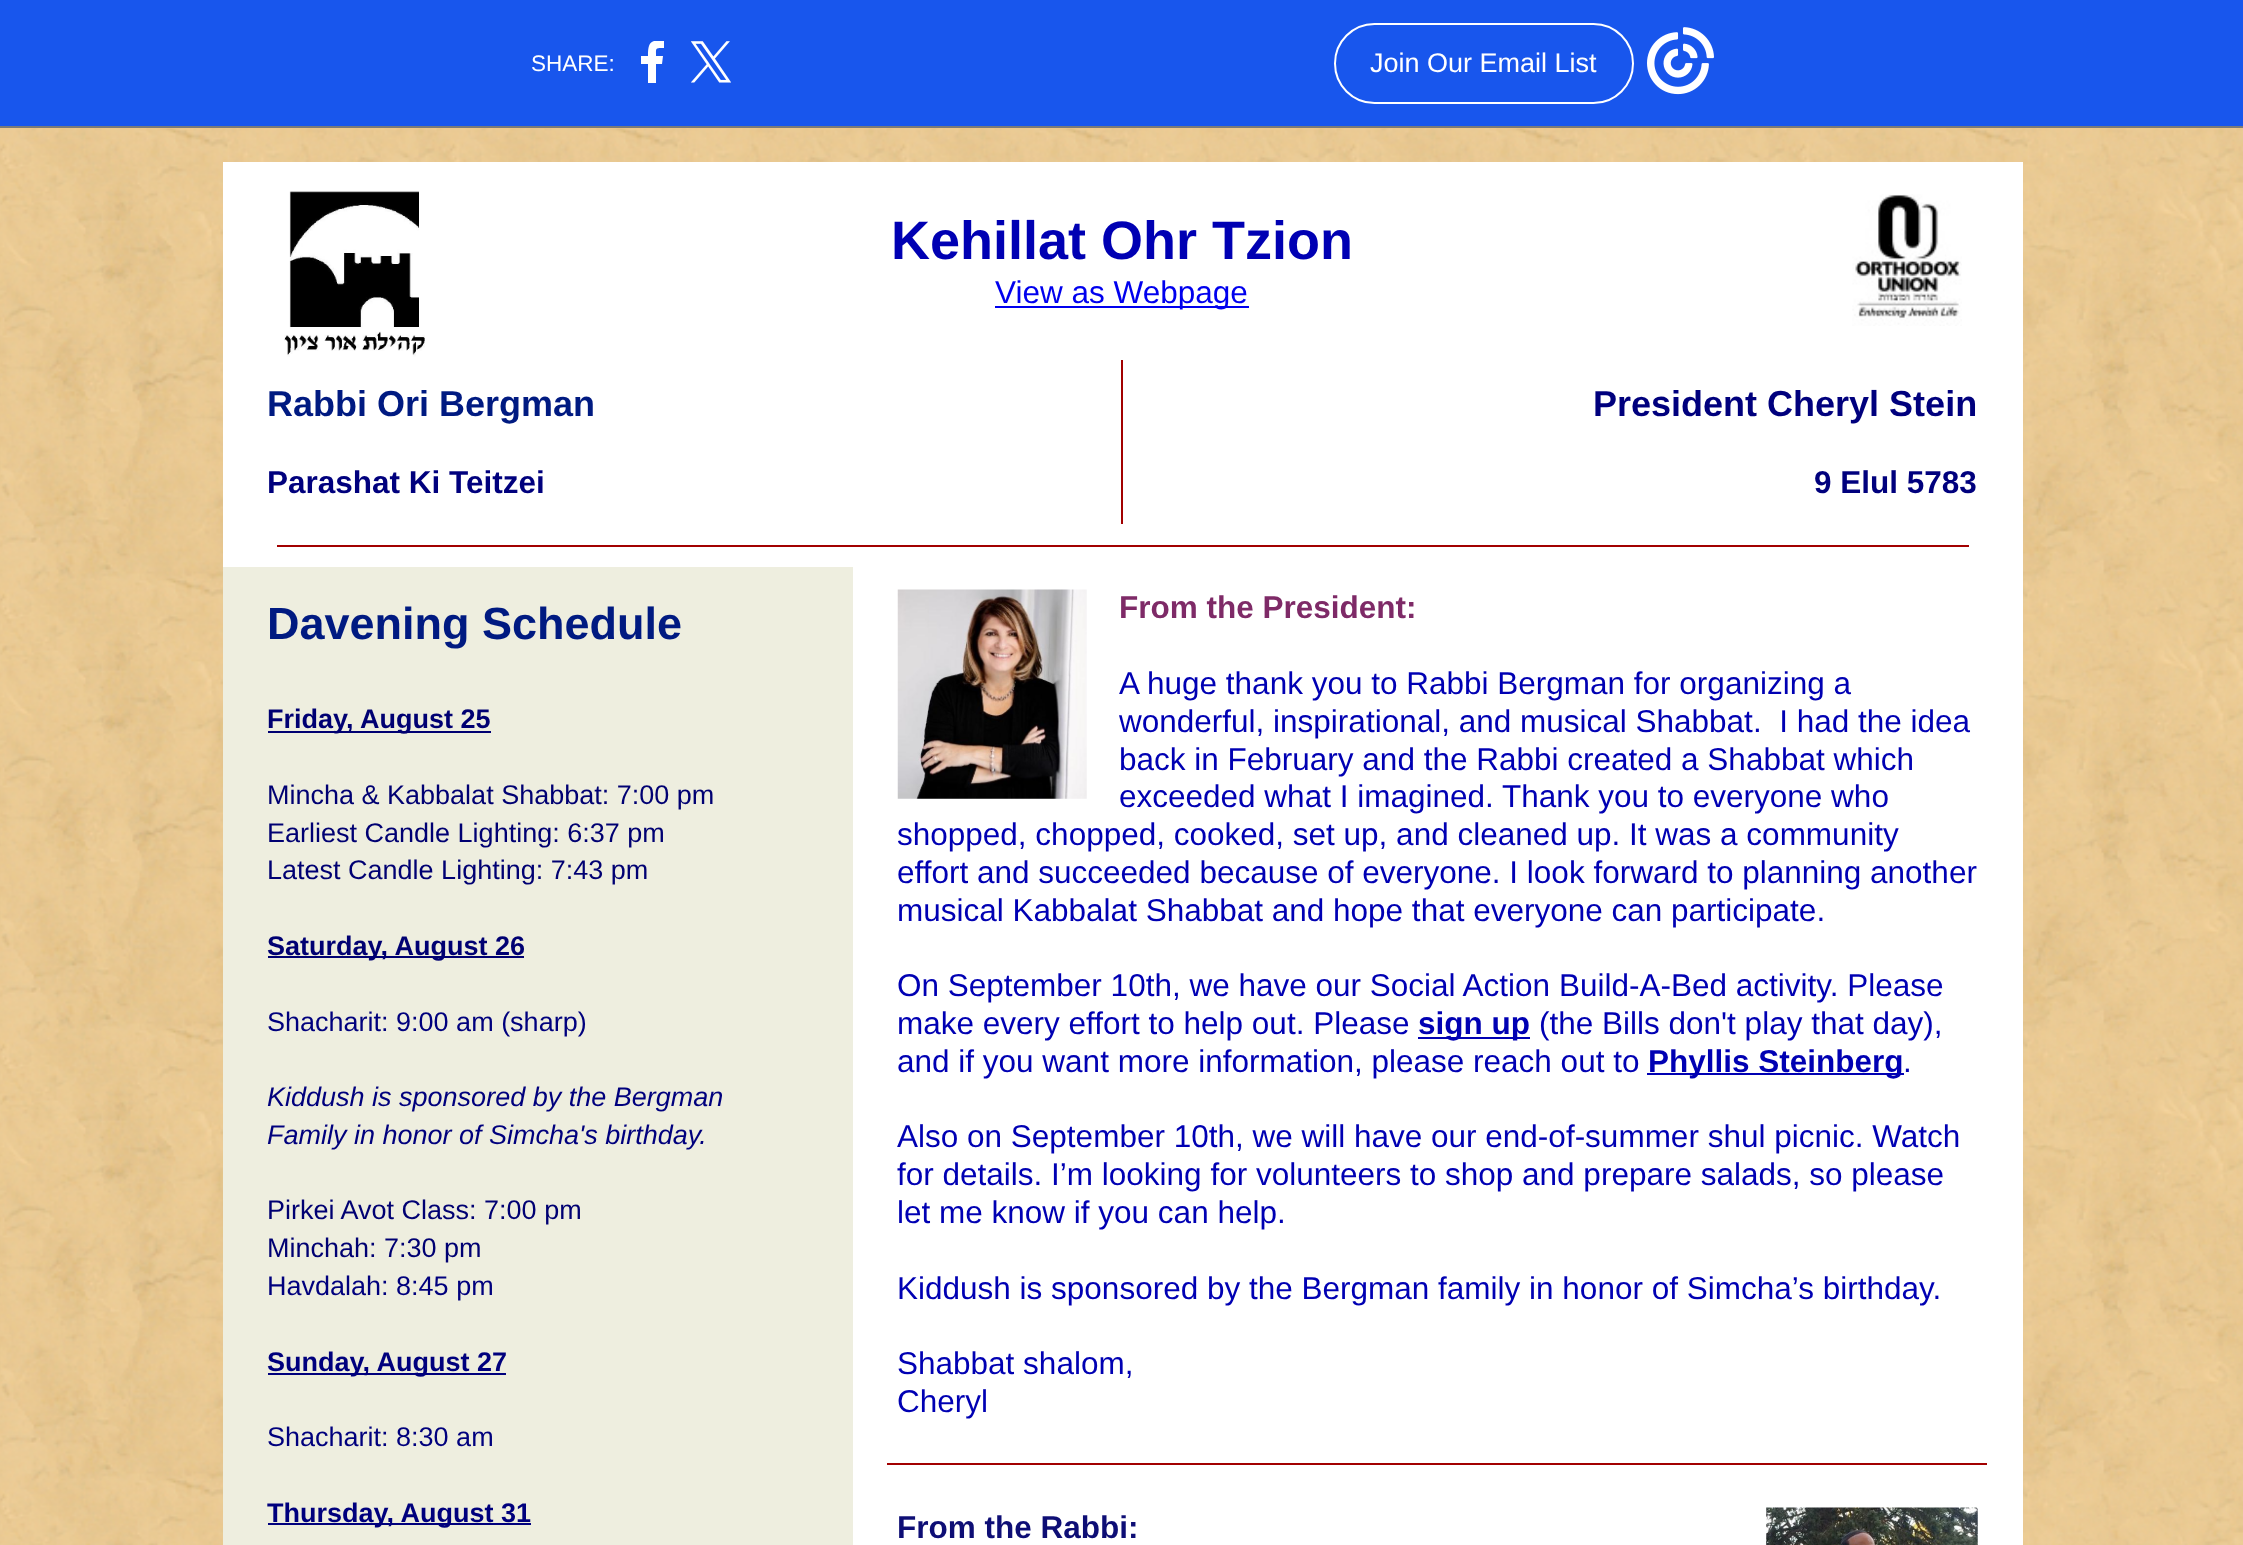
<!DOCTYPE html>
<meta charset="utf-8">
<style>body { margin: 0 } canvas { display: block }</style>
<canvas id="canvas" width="2243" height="1545"></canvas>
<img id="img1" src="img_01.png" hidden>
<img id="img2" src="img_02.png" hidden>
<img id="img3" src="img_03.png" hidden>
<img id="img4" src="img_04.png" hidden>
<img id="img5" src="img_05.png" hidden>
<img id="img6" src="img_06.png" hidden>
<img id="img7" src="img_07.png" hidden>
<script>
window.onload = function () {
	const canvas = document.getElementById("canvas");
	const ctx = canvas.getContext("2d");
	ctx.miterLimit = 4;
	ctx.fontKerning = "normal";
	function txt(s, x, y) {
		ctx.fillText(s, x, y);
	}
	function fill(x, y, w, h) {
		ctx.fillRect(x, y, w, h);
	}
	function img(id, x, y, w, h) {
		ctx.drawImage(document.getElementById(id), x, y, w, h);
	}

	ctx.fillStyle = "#FFC871";
	fill(0, 0, 2243, 1545);
	ctx.fillStyle = "#1856ED";
	fill(0, 0, 2243, 126);
	ctx.fillStyle = "#7A7A7A";
	fill(0, 126, 2243, 2);
	ctx.save();
	ctx.beginPath();
	ctx.rect(641, 41, 23, 42);
	ctx.clip();
	ctx.fillStyle = "#FFFFFF";
	ctx.beginPath();
	ctx.moveTo(656, 83);
	ctx.lineTo(656, 64);
	ctx.lineTo(662, 64);
	ctx.lineTo(663, 56);
	ctx.lineTo(656, 56);
	ctx.bezierCurveTo(656, 48, 655, 48, 664, 48);
	ctx.lineTo(664, 41);
	ctx.bezierCurveTo(650, 39, 648, 43, 648, 56);
	ctx.lineTo(641, 56);
	ctx.lineTo(641, 64);
	ctx.lineTo(648, 64);
	ctx.lineTo(648, 83);
	ctx.closePath();
	ctx.fill("evenodd");
	ctx.restore();
	img("img1", 691, 41, 40, 42);
	ctx.beginPath();
	ctx.roundRect(1335, 24, 298, 79, 39.5);
	ctx.strokeStyle = "#FFFFFF";
	ctx.lineWidth = 2;
	ctx.stroke();
	img("img2", 1647, 27, 67, 68);
	img("img3", 0, 128, 2243, 1417);
	ctx.fillStyle = "#FFFFFF";
	fill(223, 162, 1800, 1383);
	img("img4", 284, 191, 141, 166);
	ctx.fillStyle = "#0000EE";
	fill(995, 306, 254, 2);
	img("img5", 1852, 194, 110, 132);
	ctx.fillStyle = "#A20000";
	fill(1121, 360, 2, 164);
	fill(277, 545, 1692, 2);
	ctx.fillStyle = "#EEEEDF";
	fill(223, 567, 630, 978);
	ctx.fillStyle = "#000072";
	fill(268, 731, 223, 2);
	fill(268, 956, 256, 2);
	ctx.fillStyle = "#00007D";
	fill(268, 1373, 238, 2);
	fill(268, 1523, 263, 2);
	img("img6", 897, 589, 190, 210);
	ctx.fillStyle = "#0000B3";
	fill(1418, 1037, 112, 2);
	fill(1647, 1073, 257, 2);
	ctx.fillStyle = "#A20000";
	fill(887, 1463, 1100, 2);
	img("img7", 1766, 1507, 212, 38);
	ctx.font = "22.5px Liberation Sans";
	ctx.fillStyle = "#FFFFFF";
	txt("SHARE:", 531, 71);
	ctx.font = "27px Liberation Sans";
	txt("Join Our Email List", 1370, 72);
	ctx.font = "bold 54px Liberation Sans";
	ctx.fillStyle = "#0000B3";
	txt("Kehillat Ohr Tzion", 891, 259);
	ctx.font = "31.5px Liberation Sans";
	ctx.fillStyle = "#0000EE";
	txt("View as Webpage", 995, 303);
	ctx.font = "bold 36px Liberation Sans";
	ctx.fillStyle = "#001A81";
	txt("Rabbi Ori Bergman", 267, 416);
	ctx.font = "bold 31.5px Liberation Sans";
	ctx.fillStyle = "#00007D";
	txt("Parashat Ki Teitzei", 267, 493);
	ctx.font = "bold 36px Liberation Sans";
	txt("President Cheryl Stein", 1593, 416);
	ctx.font = "bold 31.5px Liberation Sans";
	txt("9 Elul 5783", 1814, 493);
	ctx.font = "bold 45px Liberation Sans";
	ctx.fillStyle = "#001A81";
	txt("Davening Schedule", 267, 639);
	ctx.font = "bold 27px Liberation Sans";
	ctx.fillStyle = "#000072";
	txt("Friday, August 25", 267, 728);
	ctx.font = "27px Liberation Sans";
	txt("Mincha & Kabbalat Shabbat: 7:00 pm", 267, 804);
	txt("Earliest Candle Lighting: 6:37 pm", 267, 842);
	txt("Latest Candle Lighting: 7:43 pm", 267, 879);
	ctx.font = "bold 27px Liberation Sans";
	txt("Saturday, August 26", 267, 955);
	ctx.font = "27px Liberation Sans";
	ctx.fillStyle = "#00007D";
	txt("Shacharit: 9:00 am (sharp)", 267, 1031);
	ctx.font = "italic 27px Liberation Sans";
	txt("Kiddush is sponsored by the Bergman", 267, 1106);
	txt("Family in honor of Simcha's birthday.", 267, 1144);
	ctx.font = "27px Liberation Sans";
	ctx.fillStyle = "#000072";
	txt("Pirkei Avot Class: 7:00 pm", 267, 1219);
	txt("Minchah: 7:30 pm", 267, 1257);
	ctx.fillStyle = "#00007D";
	txt("Havdalah: 8:45 pm", 267, 1295);
	ctx.font = "bold 27px Liberation Sans";
	txt("Sunday, August 27", 267, 1371);
	ctx.font = "27px Liberation Sans";
	txt("Shacharit: 8:30 am", 267, 1446);
	ctx.font = "bold 27px Liberation Sans";
	txt("Thursday, August 31", 267, 1522);
	ctx.font = "bold 31.5px Liberation Sans";
	ctx.fillStyle = "#7E2A67";
	txt("From the President:", 1119, 618);
	ctx.font = "31.5px Liberation Sans";
	ctx.fillStyle = "#0000B3";
	txt("A huge thank you to Rabbi Bergman for organizing a", 1119, 694);
	txt("wonderful, inspirational, and musical Shabbat.  I had the idea", 1119, 732);
	txt("back in February and the Rabbi created a Shabbat which", 1119, 770);
	txt("exceeded what I imagined. Thank you to everyone who", 1119, 807);
	txt("shopped, chopped, cooked, set up, and cleaned up. It was a community", 897, 845);
	txt("effort and succeeded because of everyone. I look forward to planning another", 897, 883);
	txt("musical Kabbalat Shabbat and hope that everyone can participate.", 897, 921);
	txt("On September 10th, we have our Social Action Build-A-Bed activity. Please", 897, 996);
	txt("make every effort to help out. Please", 897, 1034);
	ctx.font = "bold 31.5px Liberation Sans";
	txt("sign up", 1418, 1034);
	ctx.font = "31.5px Liberation Sans";
	txt("(the Bills don't play that day),", 1539, 1034);
	txt("and if you want more information, please reach out to", 897, 1072);
	ctx.font = "bold 31.5px Liberation Sans";
	txt("Phyllis Steinberg", 1648, 1072);
	ctx.font = "31.5px Liberation Sans";
	txt(".", 1903, 1072);
	txt("Also on September 10th, we will have our end-of-summer shul picnic. Watch", 897, 1147);
	txt("for details. I’m looking for volunteers to shop and prepare salads, so please", 897, 1185);
	txt("let me know if you can help.", 897, 1223);
	txt("Kiddush is sponsored by the Bergman family in honor of Simcha’s birthday.", 897, 1299);
	txt("Shabbat shalom,", 897, 1374);
	txt("Cheryl", 897, 1412);
	ctx.font = "bold 31.5px Liberation Sans";
	ctx.fillStyle = "#0E0E75";
	txt("From the Rabbi:", 897, 1538);
};
</script>
